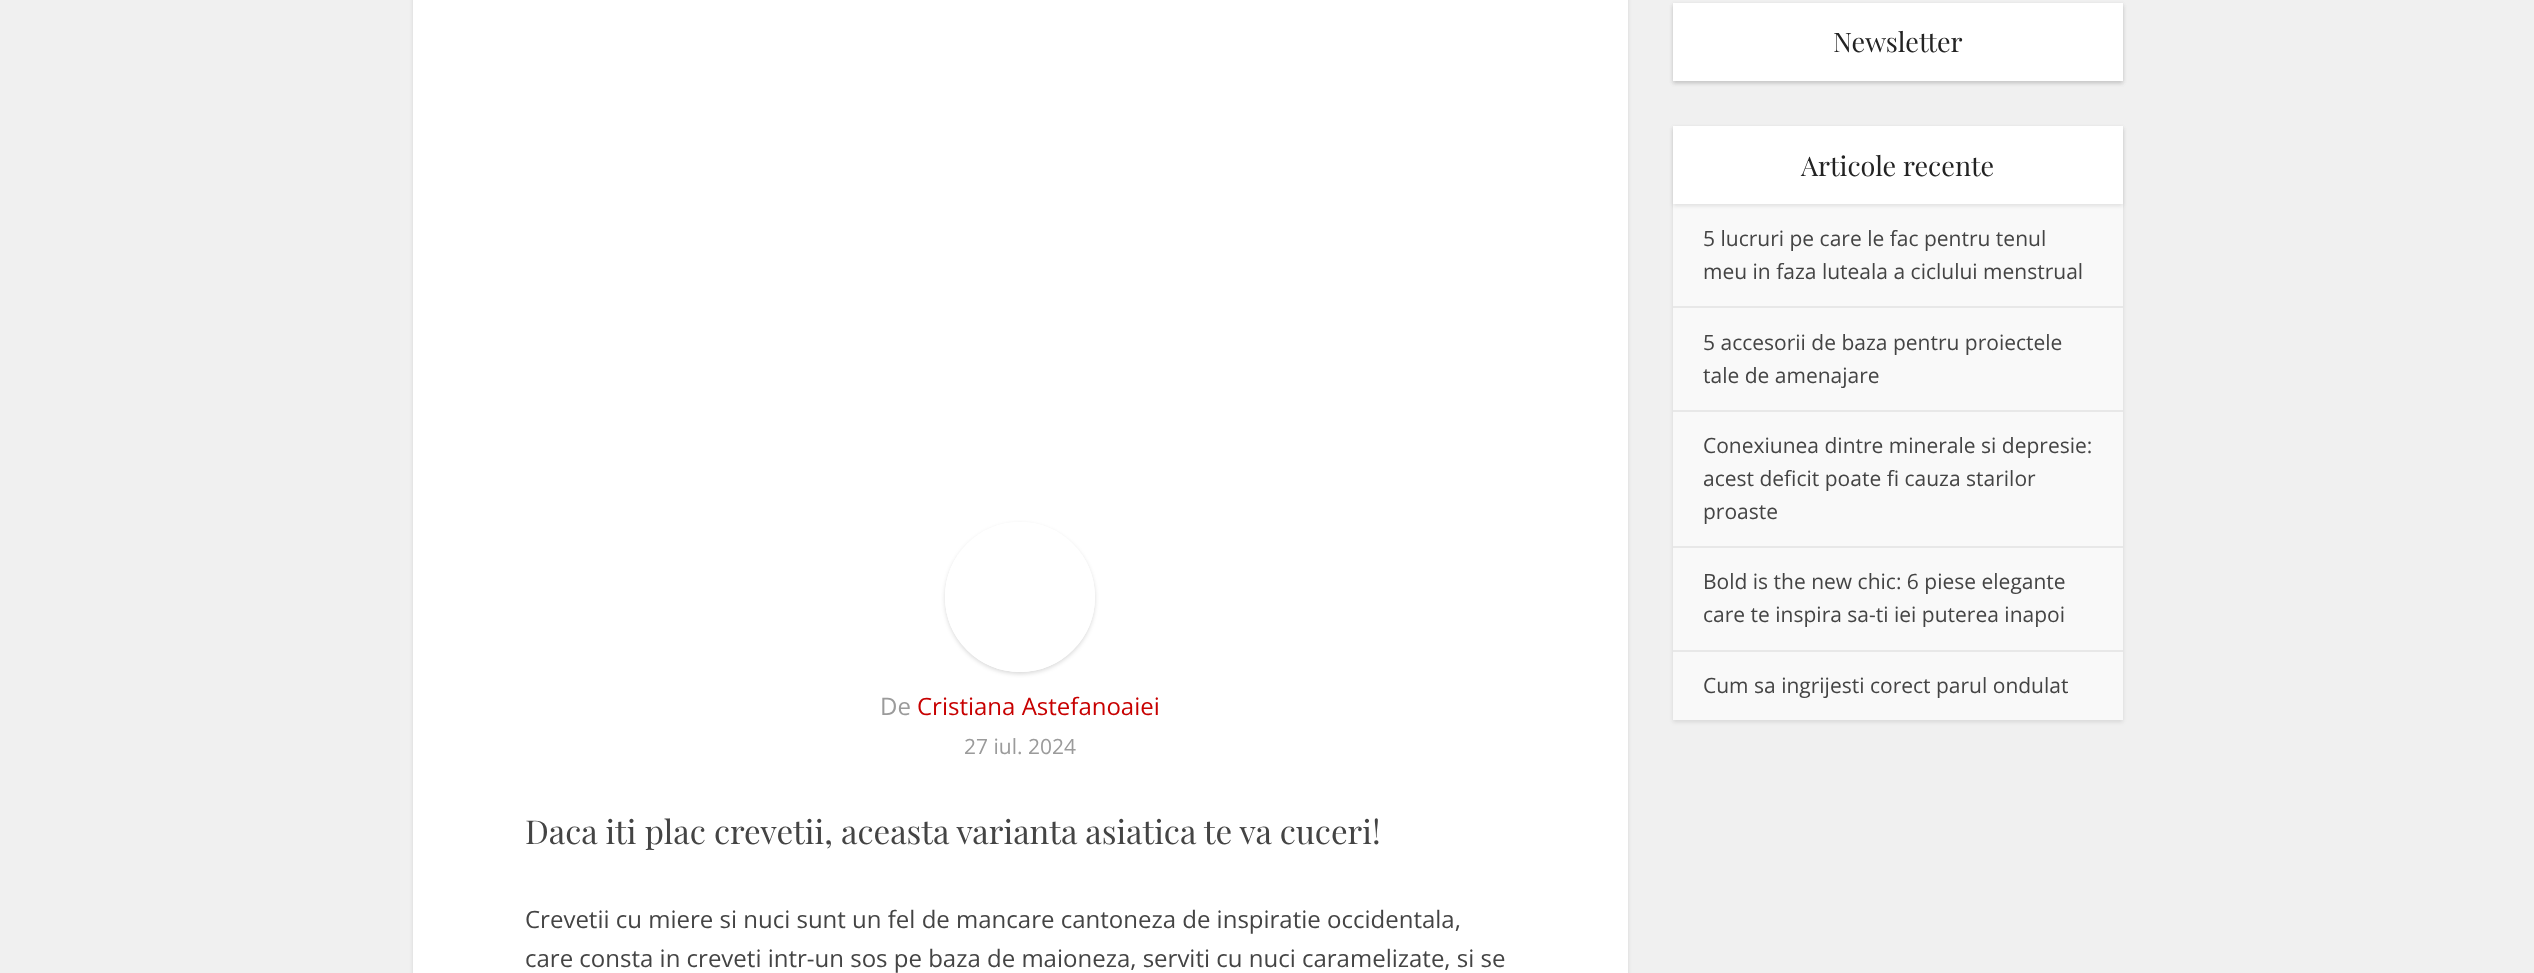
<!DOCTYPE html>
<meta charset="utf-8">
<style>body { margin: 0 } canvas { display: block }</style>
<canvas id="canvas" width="2534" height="973"></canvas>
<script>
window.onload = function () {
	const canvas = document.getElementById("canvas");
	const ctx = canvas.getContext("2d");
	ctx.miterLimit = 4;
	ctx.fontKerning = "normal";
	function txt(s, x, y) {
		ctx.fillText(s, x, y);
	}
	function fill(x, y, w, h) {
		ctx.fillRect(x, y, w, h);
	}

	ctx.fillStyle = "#F0F0F0";
	fill(0, 0, 2534, 973);
	ctx.fillStyle = "rgba(0, 0, 0, 0.1)";
	ctx.filter = "blur(2px)";
	ctx.beginPath();
	ctx.rect(1673, 5, 450, 78);
	ctx.fill();
	ctx.filter = "none";
	ctx.filter = "blur(2px)";
	ctx.beginPath();
	ctx.rect(1673, 5, 450, 78);
	ctx.fill();
	ctx.filter = "none";
	ctx.fillStyle = "#FFFFFF";
	fill(1673, 3, 450, 78);
	ctx.fillStyle = "rgba(0, 0, 0, 0.1)";
	ctx.filter = "blur(2px)";
	ctx.beginPath();
	ctx.rect(1673, 128, 450, 594);
	ctx.fill();
	ctx.filter = "none";
	ctx.fillStyle = "#F9F9F9";
	fill(1673, 204, 450, 516);
	ctx.fillStyle = "rgba(0, 0, 0, 0.1)";
	ctx.filter = "blur(2px)";
	ctx.beginPath();
	ctx.rect(1673, 128, 450, 78);
	ctx.fill();
	ctx.filter = "none";
	ctx.fillStyle = "#FFFFFF";
	fill(1673, 126, 450, 78);
	ctx.fillStyle = "#E8E8E8";
	fill(1673, 306, 450, 2);
	fill(1673, 410, 450, 2);
	fill(1673, 546, 450, 2);
	fill(1673, 650, 450, 2);
	ctx.fillStyle = "rgba(0, 0, 0, 0.1)";
	ctx.filter = "blur(2px)";
	ctx.beginPath();
	ctx.rect(413, -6, 1215, 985);
	ctx.fill();
	ctx.filter = "none";
	ctx.fillStyle = "#FFFFFF";
	fill(413, 0, 1215, 973);
	ctx.save();
	ctx.beginPath();
	ctx.moveTo(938, 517);
	ctx.lineTo(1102, 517);
	ctx.lineTo(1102, 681);
	ctx.lineTo(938, 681);
	ctx.closePath();
	ctx.moveTo(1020, 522);
	ctx.bezierCurveTo(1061.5, 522, 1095, 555.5, 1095, 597);
	ctx.bezierCurveTo(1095, 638.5, 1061.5, 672, 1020, 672);
	ctx.bezierCurveTo(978.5, 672, 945, 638.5, 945, 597);
	ctx.bezierCurveTo(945, 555.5, 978.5, 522, 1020, 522);
	ctx.closePath();
	ctx.clip("evenodd");
	ctx.fillStyle = "rgba(0, 0, 0, 0.15)";
	ctx.filter = "blur(2px)";
	ctx.beginPath();
	ctx.roundRect(945, 524, 150, 150, 75);
	ctx.fill();
	ctx.filter = "none";
	ctx.restore();
	ctx.beginPath();
	ctx.arc(1020, 597, 71, 0, Math.PI * 2);
	ctx.strokeStyle = "#FFFFFF";
	ctx.lineWidth = 8;
	ctx.stroke();
	ctx.font = "27px Playfair Display";
	ctx.fillStyle = "#232323";
	txt("Newsletter", 1833, 52);
	txt("Articole recente", 1801, 176);
	ctx.font = "21px Open Sans";
	ctx.fillStyle = "#444444";
	txt("5 lucruri pe care le fac pentru tenul", 1703, 246);
	txt("meu in faza luteala a ciclului menstrual", 1703, 279);
	txt("5 accesorii de baza pentru proiectele", 1703, 350);
	txt("tale de amenajare", 1703, 383);
	txt("Conexiunea dintre minerale si depresie:", 1703, 453);
	txt("acest deficit poate fi cauza starilor", 1703, 486);
	txt("proaste", 1703, 519);
	txt("Bold is the new chic: 6 piese elegante", 1703, 589);
	txt("care te inspira sa-ti iei puterea inapoi", 1703, 622);
	txt("Cum sa ingrijesti corect parul ondulat", 1703, 693);
	ctx.font = "24px Open Sans";
	ctx.fillStyle = "#9B9B9B";
	txt("De", 880, 715);
	ctx.fillStyle = "#C70000";
	txt("Cristiana Astefanoaiei", 917, 715);
	ctx.font = "21px Open Sans";
	ctx.fillStyle = "#9B9B9B";
	txt("27 iul. 2024", 964, 754);
	ctx.font = "33px Playfair Display";
	ctx.fillStyle = "#444444";
	txt("Daca iti plac crevetii, aceasta varianta asiatica te va cuceri!", 525, 844);
	ctx.font = "24px Open Sans";
	txt("Crevetii cu miere si nuci sunt un fel de mancare cantoneza de inspiratie occidentala,", 525, 928);
	txt("care consta in creveti intr-un sos pe baza de maioneza, serviti cu nuci caramelizate, si se", 525, 967);
};
</script>
